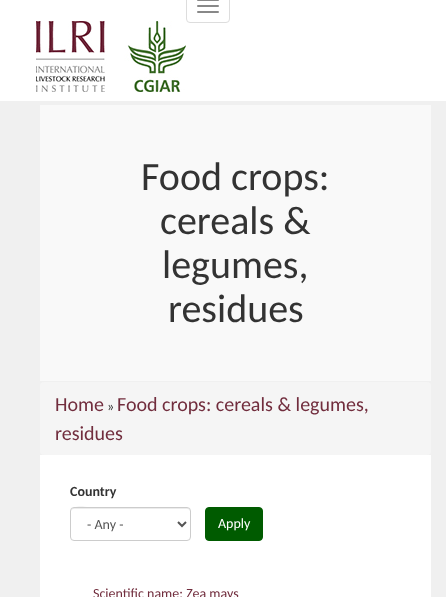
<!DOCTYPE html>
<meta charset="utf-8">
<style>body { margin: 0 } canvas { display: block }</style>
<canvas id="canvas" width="446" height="597"></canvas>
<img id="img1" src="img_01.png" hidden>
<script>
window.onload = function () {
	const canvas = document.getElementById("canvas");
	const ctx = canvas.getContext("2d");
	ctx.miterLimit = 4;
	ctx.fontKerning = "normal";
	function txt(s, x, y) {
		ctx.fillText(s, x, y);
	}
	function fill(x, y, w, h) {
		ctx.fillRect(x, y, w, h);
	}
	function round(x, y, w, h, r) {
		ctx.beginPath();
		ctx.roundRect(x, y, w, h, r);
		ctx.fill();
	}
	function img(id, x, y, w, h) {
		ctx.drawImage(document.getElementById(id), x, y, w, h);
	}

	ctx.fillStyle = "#F0F0F0";
	fill(0, 0, 446, 597);
	ctx.fillStyle = "#FFFFFF";
	fill(0, 0, 446, 101);
	ctx.beginPath();
	ctx.roundRect(186.5, -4.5, 43, 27, 3.5);
	ctx.strokeStyle = "#DDDDDD";
	ctx.stroke();
	ctx.fillStyle = "#888888";
	round(197, -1, 22, 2, 1);
	round(197, 5, 22, 2, 1);
	round(197, 11, 22, 2, 1);
	img("img1", 36, 21, 150, 71);
	ctx.fillStyle = "#F9F9F9";
	fill(40, 105, 391, 276);
	ctx.fillStyle = "#F5F5F5";
	round(40, 382, 391, 73, 4);
	ctx.fillStyle = "#FFFFFF";
	fill(40, 455, 391, 142);
	ctx.fillStyle = "#ECECEC";
	ctx.beginPath();
	ctx.moveTo(74, 509);
	ctx.lineTo(187, 509);
	ctx.bezierCurveTo(189, 509, 190, 510, 190, 512);
	ctx.bezierCurveTo(190, 510, 189, 508, 187, 508);
	ctx.lineTo(93, 508);
	ctx.bezierCurveTo(92, 508, 71, 503, 71, 512);
	ctx.bezierCurveTo(71, 510, 72, 509, 74, 509);
	ctx.closePath();
	ctx.fill();
	ctx.beginPath();
	ctx.roundRect(70.5, 507.5, 120, 33, 3.5);
	ctx.strokeStyle = "#CCCCCC";
	ctx.stroke();
	ctx.beginPath();
	ctx.moveTo(178, 522);
	ctx.lineTo(182, 526);
	ctx.lineTo(186, 522);
	ctx.strokeStyle = "#555555";
	ctx.lineWidth = 2;
	ctx.stroke();
	ctx.fillStyle = "#005B00";
	ctx.beginPath();
	ctx.roundRect(205.5, 507.5, 57, 33, 3.5);
	ctx.fill();
	ctx.strokeStyle = "#005B00";
	ctx.lineWidth = 1;
	ctx.stroke();
	ctx.font = "40px Carlito";
	ctx.fillStyle = "#333333";
	txt("Food crops:", 141, 190);
	txt("cereals &", 160, 234);
	txt("legumes,", 162, 278);
	txt("residues", 168, 322);
	ctx.font = "20px Carlito";
	ctx.fillStyle = "#712D3D";
	txt("Home", 55, 411);
	ctx.font = "14px Carlito";
	ctx.fillStyle = "#333333";
	txt("»", 107, 411);
	ctx.font = "20px Carlito";
	ctx.fillStyle = "#712D3D";
	txt("Food crops: cereals & legumes,", 117, 411);
	txt("residues", 55, 440);
	ctx.font = "bold 14px Carlito";
	ctx.fillStyle = "#333333";
	txt("Country", 70, 496);
	ctx.font = "14px Carlito";
	ctx.fillStyle = "#555555";
	txt("- Any -", 87, 529);
	ctx.fillStyle = "#FFFFFF";
	txt("Apply", 218, 528);
	ctx.fillStyle = "#712D3D";
	txt("Scientific name: Zea mays", 93, 598);
};
</script>
